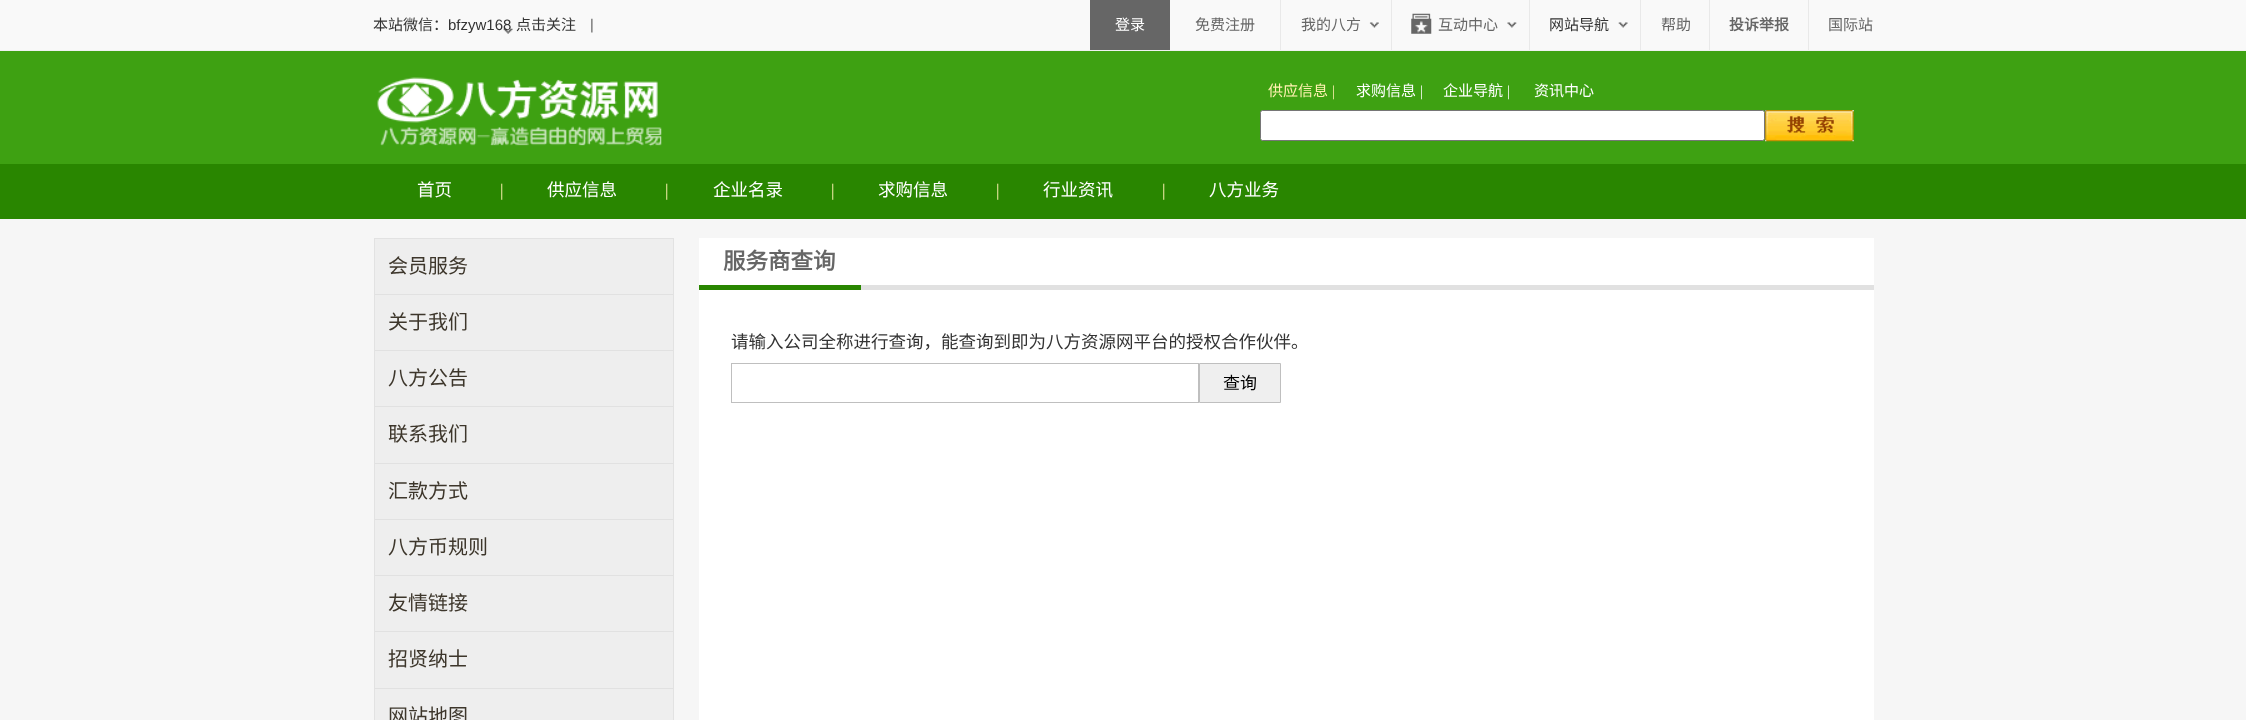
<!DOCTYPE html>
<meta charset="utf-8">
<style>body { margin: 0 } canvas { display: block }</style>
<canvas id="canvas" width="2246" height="720"></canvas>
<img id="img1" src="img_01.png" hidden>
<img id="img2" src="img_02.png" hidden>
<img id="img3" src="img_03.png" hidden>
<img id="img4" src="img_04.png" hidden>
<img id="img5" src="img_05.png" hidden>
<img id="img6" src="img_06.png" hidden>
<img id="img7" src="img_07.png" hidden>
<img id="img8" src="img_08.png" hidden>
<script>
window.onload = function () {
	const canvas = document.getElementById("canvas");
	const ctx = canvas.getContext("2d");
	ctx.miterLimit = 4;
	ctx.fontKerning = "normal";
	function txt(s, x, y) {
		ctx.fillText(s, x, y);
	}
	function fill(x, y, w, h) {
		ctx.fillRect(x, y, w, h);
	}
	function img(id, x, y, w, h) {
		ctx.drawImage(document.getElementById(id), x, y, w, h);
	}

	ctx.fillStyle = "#F6F6F6";
	fill(0, 0, 2246, 720);
	ctx.fillStyle = "#F9F9F9";
	fill(0, 0, 2246, 50);
	ctx.fillStyle = "#F0F0F0";
	fill(0, 50, 2246, 1);
	img("img1", 503, 28, 10, 6);
	img("img2", 591, 18, 2, 15);
	ctx.fillStyle = "#666666";
	fill(1090, 0, 80, 50);
	ctx.fillStyle = "#E9E9E9";
	fill(1280, 0, 1, 50);
	img("img3", 1369, 22, 10, 6);
	fill(1391, 0, 1, 50);
	img("img4", 1507, 22, 10, 6);
	img("img5", 1411, 13, 21, 21);
	fill(1529, 0, 1, 50);
	img("img6", 1618, 22, 10, 6);
	fill(1640, 0, 1, 50);
	fill(1709, 0, 1, 50);
	fill(1808, 0, 1, 50);
	ctx.fillStyle = "#3EA112";
	fill(0, 51, 2246, 113);
	img("img7", 377, 77, 285, 70);
	ctx.fillStyle = "#FFFFFF";
	ctx.beginPath();
	ctx.roundRect(1260.5, 110.5, 504, 30, 2);
	ctx.fill();
	ctx.strokeStyle = "#767676";
	ctx.stroke();
	img("img8", 1765, 110, 89, 32);
	ctx.fillStyle = "#298600";
	fill(0, 164, 2246, 55);
	ctx.strokeStyle = "#E2E2E2";
	ctx.strokeRect(374.5, 238.5, 299, 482);
	ctx.fillStyle = "#EEEEEE";
	fill(375, 239, 298, 55);
	ctx.fillStyle = "#E1E1E1";
	fill(375, 294, 298, 1);
	ctx.fillStyle = "#EEEEEE";
	fill(375, 295, 298, 55);
	ctx.fillStyle = "#E1E1E1";
	fill(375, 350, 298, 1);
	ctx.fillStyle = "#EEEEEE";
	fill(375, 351, 298, 112);
	ctx.fillStyle = "#E1E1E1";
	fill(375, 406, 298, 1);
	fill(375, 463, 298, 1);
	ctx.fillStyle = "#EEEEEE";
	fill(375, 464, 298, 55);
	ctx.fillStyle = "#E1E1E1";
	fill(375, 519, 298, 1);
	ctx.fillStyle = "#EEEEEE";
	fill(375, 520, 298, 55);
	ctx.fillStyle = "#E1E1E1";
	fill(375, 575, 298, 1);
	ctx.fillStyle = "#EEEEEE";
	fill(375, 576, 298, 112);
	ctx.fillStyle = "#E1E1E1";
	fill(375, 631, 298, 1);
	fill(375, 688, 298, 1);
	ctx.fillStyle = "#EEEEEE";
	fill(375, 689, 298, 31);
	ctx.fillStyle = "#FFFFFF";
	fill(699, 238, 1175, 482);
	ctx.fillStyle = "#E1E1E1";
	fill(861, 285, 1013, 5);
	ctx.fillStyle = "#298600";
	fill(699, 285, 162, 5);
	ctx.strokeStyle = "#BFBFBF";
	ctx.strokeRect(731.5, 363.5, 467, 39);
	ctx.fillStyle = "#EFEFEF";
	ctx.beginPath();
	ctx.rect(1199.5, 363.5, 81, 39);
	ctx.fill();
	ctx.stroke();
	ctx.font = "15px Noto Sans CJK SC";
	ctx.fillStyle = "#333333";
	txt("本站微信：", 373, 30);
	ctx.font = "15px Liberation Sans";
	txt("bfzyw168", 448, 30);
	ctx.font = "15px Noto Sans CJK SC";
	txt("点击关注", 516, 30);
	ctx.fillStyle = "#FFFFFF";
	txt("登录", 1115, 30);
	ctx.fillStyle = "#666666";
	txt("免费注册", 1195, 30);
	txt("我的八方", 1301, 30);
	txt("互动中心", 1438, 30);
	ctx.fillStyle = "#333333";
	txt("网站导航", 1549, 30);
	ctx.fillStyle = "#666666";
	txt("帮助", 1661, 30);
	ctx.font = "bold 15px Noto Sans CJK SC";
	txt("投诉举报", 1729, 30);
	ctx.font = "15px Noto Sans CJK SC";
	txt("国际站", 1828, 30);
	ctx.fillStyle = "#FFF1B1";
	txt("供应信息", 1268, 96);
	ctx.font = "15px Liberation Serif";
	txt("|", 1332, 96);
	ctx.font = "15px Noto Sans CJK SC";
	ctx.fillStyle = "#FFFFFF";
	txt("求购信息", 1356, 96);
	ctx.font = "15px Liberation Serif";
	txt("|", 1420, 96);
	ctx.font = "15px Noto Sans CJK SC";
	txt("企业导航", 1443, 96);
	ctx.font = "15px Liberation Serif";
	txt("|", 1507, 96);
	ctx.font = "15px Noto Sans CJK SC";
	txt("资讯中心", 1534, 96);
	ctx.font = "17.5px Noto Sans CJK SC";
	txt("首页", 417, 196);
	ctx.font = "17.5px Liberation Serif";
	ctx.fillStyle = "#FFF1B1";
	txt("|", 500, 196);
	ctx.font = "17.5px Noto Sans CJK SC";
	ctx.fillStyle = "#FFFFFF";
	txt("供应信息", 547, 196);
	ctx.font = "17.5px Liberation Serif";
	ctx.fillStyle = "#FFF1B1";
	txt("|", 665, 196);
	ctx.font = "17.5px Noto Sans CJK SC";
	ctx.fillStyle = "#FFFFFF";
	txt("企业名录", 713, 196);
	ctx.font = "17.5px Liberation Serif";
	ctx.fillStyle = "#FFF1B1";
	txt("|", 831, 196);
	ctx.font = "17.5px Noto Sans CJK SC";
	ctx.fillStyle = "#FFFFFF";
	txt("求购信息", 878, 196);
	ctx.font = "17.5px Liberation Serif";
	ctx.fillStyle = "#FFF1B1";
	txt("|", 996, 196);
	ctx.font = "17.5px Noto Sans CJK SC";
	ctx.fillStyle = "#FFFFFF";
	txt("行业资讯", 1043, 196);
	ctx.font = "17.5px Liberation Serif";
	ctx.fillStyle = "#FFF1B1";
	txt("|", 1162, 196);
	ctx.font = "17.5px Noto Sans CJK SC";
	ctx.fillStyle = "#FFFFFF";
	txt("八方业务", 1209, 196);
	ctx.font = "20px Noto Sans CJK SC";
	ctx.fillStyle = "#3D362B";
	txt("会员服务", 388, 273);
	txt("关于我们", 388, 329);
	txt("八方公告", 388, 385);
	txt("联系我们", 388, 441);
	txt("汇款方式", 388, 498);
	txt("八方币规则", 388, 554);
	txt("友情链接", 388, 610);
	txt("招贤纳士", 388, 666);
	txt("网站地图", 388, 723);
	ctx.font = "bold 22.5px Noto Sans CJK SC";
	ctx.fillStyle = "#666666";
	txt("服务商查询", 723, 269);
	ctx.font = "17.5px Noto Sans CJK SC";
	ctx.fillStyle = "#333333";
	txt("请输入公司全称进行查询，能查询到即为八方资源网平台的授权合作伙伴。", 731, 348);
	ctx.font = "17px Noto Sans CJK SC";
	ctx.fillStyle = "#000000";
	txt("查询", 1223, 389);
};
</script>
